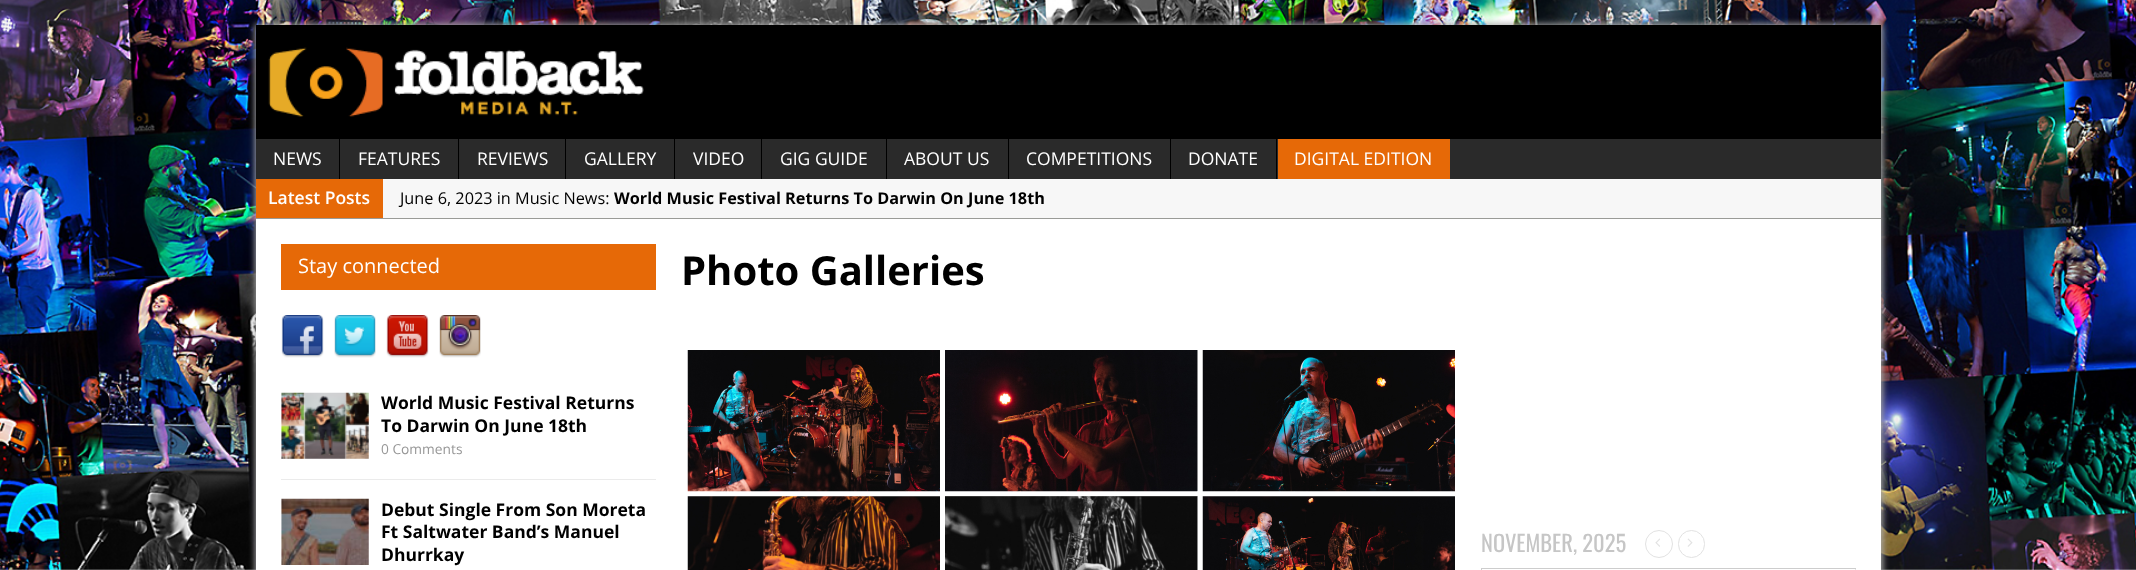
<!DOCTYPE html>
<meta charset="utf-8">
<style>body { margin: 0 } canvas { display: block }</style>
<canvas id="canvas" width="2136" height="570"></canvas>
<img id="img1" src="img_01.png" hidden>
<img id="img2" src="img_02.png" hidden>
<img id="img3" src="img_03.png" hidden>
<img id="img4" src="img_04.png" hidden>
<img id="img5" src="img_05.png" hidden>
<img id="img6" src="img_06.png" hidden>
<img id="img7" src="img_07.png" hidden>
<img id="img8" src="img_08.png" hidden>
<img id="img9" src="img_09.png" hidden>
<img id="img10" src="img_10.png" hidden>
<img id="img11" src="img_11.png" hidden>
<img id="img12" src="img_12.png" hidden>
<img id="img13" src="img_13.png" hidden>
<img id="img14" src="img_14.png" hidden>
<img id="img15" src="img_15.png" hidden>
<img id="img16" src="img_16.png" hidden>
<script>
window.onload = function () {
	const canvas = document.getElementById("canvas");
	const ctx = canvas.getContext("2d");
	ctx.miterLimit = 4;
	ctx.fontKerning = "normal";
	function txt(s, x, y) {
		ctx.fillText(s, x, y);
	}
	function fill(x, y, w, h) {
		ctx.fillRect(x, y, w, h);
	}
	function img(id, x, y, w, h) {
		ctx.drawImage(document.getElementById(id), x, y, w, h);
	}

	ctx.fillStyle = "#FFFFFF";
	fill(0, 0, 2136, 570);
	img("img1", 0, 0, 2136, 570);
	ctx.fillStyle = "#A8A8A8";
	ctx.filter = "blur(3px)";
	ctx.beginPath();
	ctx.rect(255, 24, 1628, 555);
	ctx.fill();
	ctx.filter = "none";
	ctx.fillStyle = "#000000";
	fill(256, 25, 1625, 114);
	img("img2", 268, 47, 376, 70);
	ctx.fillStyle = "#2A2A2A";
	fill(256, 139, 1625, 40);
	ctx.fillStyle = "#000000";
	fill(339, 139, 1, 40);
	fill(458, 139, 1, 40);
	fill(565, 139, 1, 40);
	fill(674, 139, 1, 40);
	fill(761, 139, 1, 40);
	fill(886, 139, 1, 40);
	fill(1008, 139, 1, 40);
	fill(1170, 139, 1, 40);
	fill(1276, 139, 1, 40);
	ctx.fillStyle = "#E66907";
	fill(1278, 139, 172, 40);
	ctx.fillStyle = "#F7F7F7";
	fill(383, 179, 1498, 39);
	ctx.fillStyle = "#9A9B97";
	fill(256, 218, 1625, 1);
	ctx.fillStyle = "#E66907";
	fill(256, 179, 127, 39);
	ctx.fillStyle = "#FFFFFF";
	fill(256, 219, 1625, 351);
	ctx.fillStyle = "#E66907";
	fill(281, 244, 375, 46);
	img("img3", 281, 315, 43, 43);
	img("img4", 334, 315, 42, 43);
	img("img5", 386, 315, 43, 43);
	img("img6", 439, 315, 42, 43);
	ctx.fillStyle = "#EBEBEB";
	fill(281, 479, 375, 1);
	img("img7", 281, 392, 88, 67);
	img("img8", 281, 498, 88, 67);
	img("img9", 687, 350, 253, 142);
	ctx.fillStyle = "#B3B3B3";
	fill(1197, 350, 1, 141);
	img("img10", 945, 350, 253, 142);
	img("img11", 1202, 350, 253, 142);
	img("img12", 687, 496, 253, 74);
	fill(945, 496, 253, 74);
	img("img13", 945, 496, 253, 74);
	img("img14", 1202, 496, 253, 74);
	ctx.beginPath();
	ctx.arc(1659, 544, 13.5, 0, Math.PI * 2);
	ctx.strokeStyle = "#E2E2E2";
	ctx.stroke();
	img("img15", 1655, 538, 5, 9);
	ctx.beginPath();
	ctx.roundRect(1678.5, 530.5, 26, 27, 13);
	ctx.stroke();
	img("img16", 1687, 538, 6, 9);
	ctx.fillStyle = "#CDCDCD";
	fill(1481, 568, 375, 1);
	ctx.fillStyle = "#E5E5E5";
	fill(1855, 569, 1, 1);
	ctx.fillStyle = "#CDCDCD";
	fill(1481, 569, 1, 1);
	ctx.font = "17.5px Open Sans";
	ctx.fillStyle = "#FFFFFF";
	txt("NEWS", 273, 165);
	txt("FEATURES", 358, 165);
	txt("REVIEWS", 477, 165);
	txt("GALLERY", 584, 165);
	txt("VIDEO", 693, 165);
	txt("GIG GUIDE", 780, 165);
	txt("ABOUT US", 904, 165);
	txt("COMPETITIONS", 1026, 165);
	txt("DONATE", 1188, 165);
	txt("DIGITAL EDITION", 1294, 165);
	ctx.font = "600 17.5px Open Sans";
	txt("Latest Posts", 268, 204);
	ctx.font = "16.25px Open Sans";
	ctx.fillStyle = "#000000";
	txt("June 6, 2023 in Music News:", 400, 204);
	ctx.font = "bold 16.25px Open Sans";
	txt("World Music Festival Returns To Darwin On June 18th", 614, 204);
	ctx.font = "20px Open Sans";
	ctx.fillStyle = "#FFFFFF";
	txt("Stay connected", 298, 273);
	ctx.font = "bold 17.5px Open Sans";
	ctx.fillStyle = "#000000";
	txt("World Music Festival Returns", 381, 409);
	txt("To Darwin On June 18th", 381, 432);
	ctx.font = "13.75px Open Sans";
	ctx.fillStyle = "#979797";
	txt("0 Comments", 381, 454);
	ctx.font = "bold 17.5px Open Sans";
	ctx.fillStyle = "#000000";
	txt("Debut Single From Son Moreta", 381, 516);
	txt("Ft Saltwater Band’s Manuel", 381, 538);
	txt("Dhurrkay", 381, 561);
	ctx.font = "bold 40px Open Sans";
	txt("Photo Galleries", 681, 285);
	ctx.font = "22.5px Oswald";
	ctx.fillStyle = "#C6C6C6";
	txt("NOVEMBER, 2025", 1481, 552);
};
</script>
